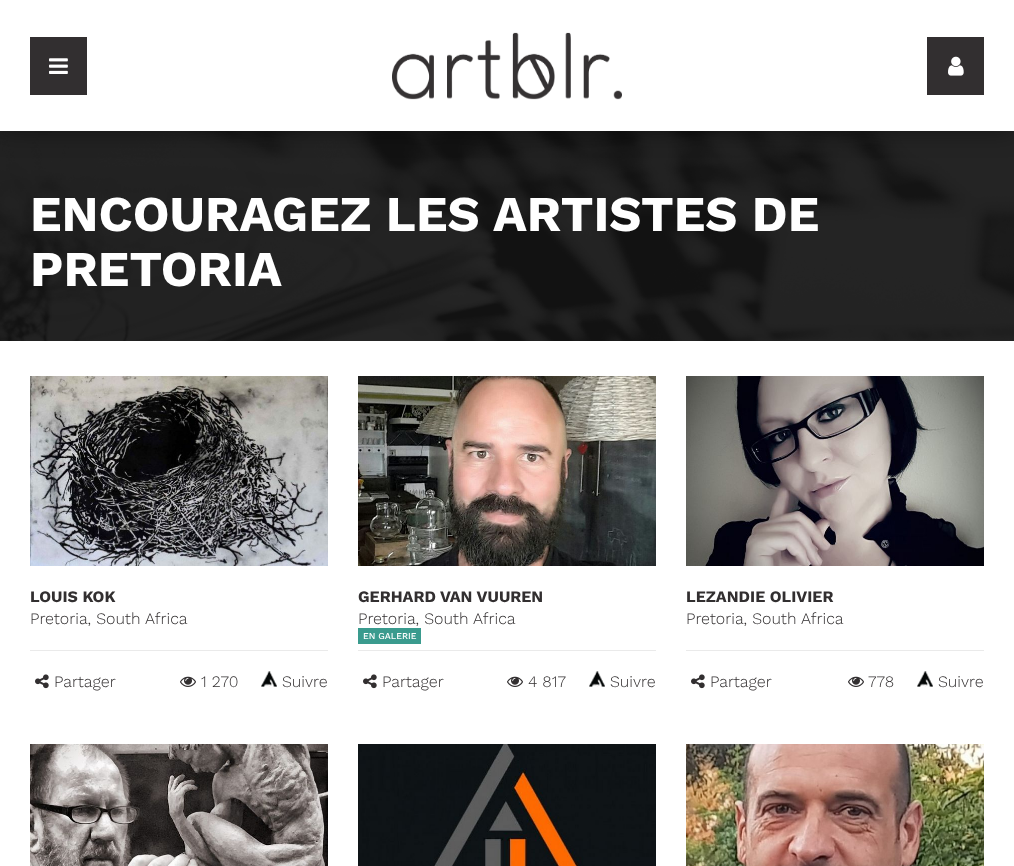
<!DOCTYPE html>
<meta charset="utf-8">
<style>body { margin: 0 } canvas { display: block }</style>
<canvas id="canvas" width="1014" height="866"></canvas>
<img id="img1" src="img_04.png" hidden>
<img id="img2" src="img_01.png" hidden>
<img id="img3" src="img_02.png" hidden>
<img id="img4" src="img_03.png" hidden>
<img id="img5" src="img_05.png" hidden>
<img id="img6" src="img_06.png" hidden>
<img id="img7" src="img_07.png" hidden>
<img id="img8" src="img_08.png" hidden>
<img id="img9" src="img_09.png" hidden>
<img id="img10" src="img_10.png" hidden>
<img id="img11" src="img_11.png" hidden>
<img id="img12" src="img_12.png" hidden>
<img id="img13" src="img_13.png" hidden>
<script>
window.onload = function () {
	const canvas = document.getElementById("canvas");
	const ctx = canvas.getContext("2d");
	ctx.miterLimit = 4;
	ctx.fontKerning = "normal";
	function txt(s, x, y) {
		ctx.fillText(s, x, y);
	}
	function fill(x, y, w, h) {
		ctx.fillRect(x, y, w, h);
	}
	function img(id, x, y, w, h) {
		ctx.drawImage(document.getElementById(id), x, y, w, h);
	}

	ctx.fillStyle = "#FFFFFF";
	fill(0, 0, 1014, 866);
	img("img1", 0, 131, 1014, 210);
	ctx.fillStyle = "rgba(0, 0, 0, 0.42)";
	ctx.filter = "blur(12.5px)";
	ctx.beginPath();
	ctx.rect(0, 0, 1014, 131);
	ctx.fill();
	ctx.filter = "none";
	ctx.fillStyle = "#FFFFFF";
	fill(0, 0, 1014, 131);
	ctx.fillStyle = "#322F30";
	fill(30, 37, 57, 58);
	img("img2", 49, 58, 19, 16);
	img("img3", 392, 32, 230, 68);
	fill(927, 37, 57, 58);
	img("img4", 948, 56, 16, 20);
	img("img5", 30, 376, 298, 190);
	ctx.fillStyle = "#EAEAEA";
	fill(30, 650, 298, 1);
	img("img6", 35, 674, 14, 15);
	img("img7", 180, 676, 16, 11);
	img("img8", 261, 671, 16, 16);
	img("img9", 358, 376, 298, 190);
	fill(358, 650, 298, 1);
	ctx.fillStyle = "#3A9B8E";
	fill(358, 628, 63, 16);
	img("img6", 363, 674, 14, 15);
	img("img7", 507, 676, 16, 11);
	img("img8", 589, 671, 16, 16);
	img("img10", 686, 376, 298, 190);
	ctx.fillStyle = "#EAEAEA";
	fill(686, 650, 298, 1);
	img("img6", 691, 674, 14, 15);
	img("img7", 848, 676, 16, 11);
	img("img8", 917, 671, 16, 16);
	img("img11", 30, 744, 298, 122);
	img("img12", 358, 744, 298, 122);
	img("img13", 686, 744, 298, 122);
	ctx.font = "bold 50px Work Sans";
	ctx.fillStyle = "#FFFFFF";
	txt("ENCOURAGEZ LES ARTISTES DE", 30, 231);
	txt("PRETORIA", 30, 286);
	ctx.font = "bold 16px Work Sans";
	ctx.fillStyle = "#322F30";
	txt("LOUIS KOK", 30, 602);
	ctx.font = "300 16px Work Sans";
	txt("Pretoria, South Africa", 30, 624);
	txt("Partager", 54, 687);
	txt("1 270", 201, 687);
	txt("Suivre", 282, 687);
	ctx.font = "bold 16px Work Sans";
	txt("GERHARD VAN VUUREN", 358, 602);
	ctx.font = "300 16px Work Sans";
	txt("Pretoria, South Africa", 358, 624);
	ctx.font = "500 9px Work Sans";
	ctx.fillStyle = "#FFFFFF";
	txt("EN GALERIE", 363, 639);
	ctx.font = "300 16px Work Sans";
	ctx.fillStyle = "#322F30";
	txt("Partager", 382, 687);
	txt("4 817", 528, 687);
	txt("Suivre", 610, 687);
	ctx.font = "bold 16px Work Sans";
	txt("LEZANDIE OLIVIER", 686, 602);
	ctx.font = "300 16px Work Sans";
	txt("Pretoria, South Africa", 686, 624);
	txt("Partager", 710, 687);
	txt("778", 868, 687);
	txt("Suivre", 938, 687);
};
</script>
